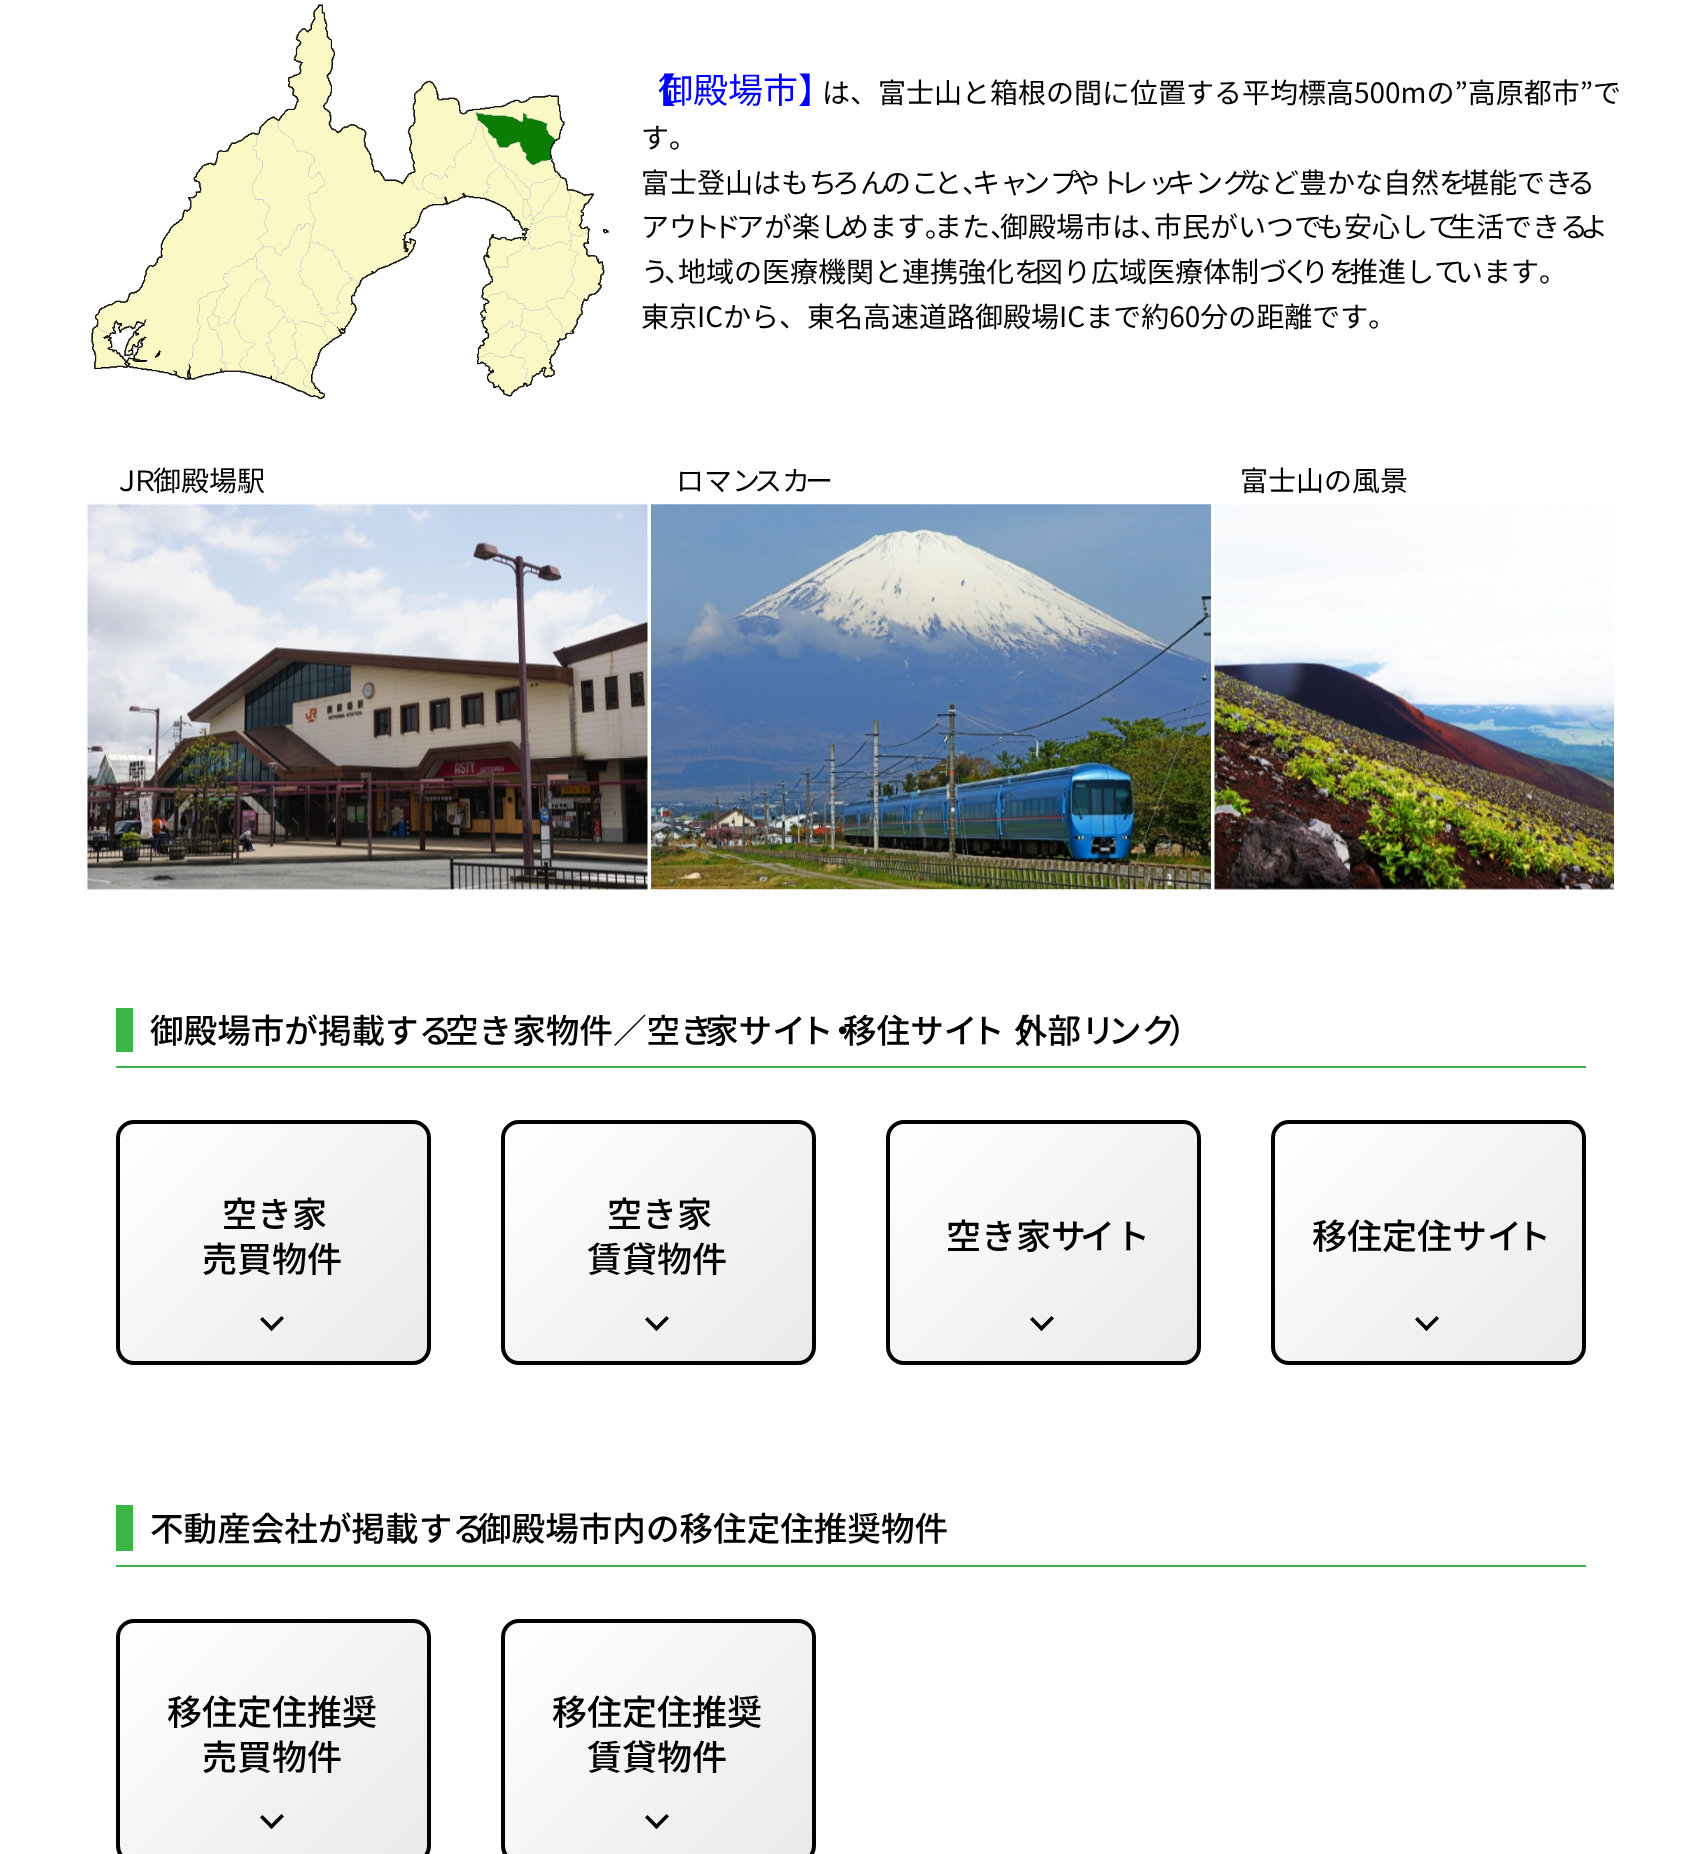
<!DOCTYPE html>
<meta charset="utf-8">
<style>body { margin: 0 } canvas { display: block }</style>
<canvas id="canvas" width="1698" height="1854"></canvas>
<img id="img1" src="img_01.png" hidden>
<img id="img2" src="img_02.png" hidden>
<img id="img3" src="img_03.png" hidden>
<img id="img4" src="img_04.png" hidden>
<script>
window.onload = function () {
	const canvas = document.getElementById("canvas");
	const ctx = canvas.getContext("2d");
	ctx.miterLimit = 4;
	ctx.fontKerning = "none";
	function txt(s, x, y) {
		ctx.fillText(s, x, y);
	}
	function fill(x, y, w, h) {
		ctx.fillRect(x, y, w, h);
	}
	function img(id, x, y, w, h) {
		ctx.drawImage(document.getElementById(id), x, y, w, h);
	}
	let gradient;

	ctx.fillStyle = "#FFFFFF";
	fill(0, 0, 1698, 1854);
	img("img1", 91, 4, 518, 396);
	img("img2", 87, 503, 561, 387);
	img("img3", 651, 504, 560, 386);
	img("img4", 1214, 504, 400, 386);
	ctx.fillStyle = "#3CB447";
	fill(116, 1008, 17, 44);
	fill(116, 1066, 1470, 2);
	ctx.save();
	ctx.beginPath();
	ctx.roundRect(116, 1120, 315, 245, 18);
	ctx.clip();
	gradient = ctx.createLinearGradient(136, 1106, 410, 1379);
	gradient.addColorStop(0, "#FFFFFF");
	gradient.addColorStop(1, "#E9E9E9");
	ctx.fillStyle = gradient;
	fill(119, 1124, 308, 238);
	ctx.restore();
	ctx.beginPath();
	ctx.roundRect(118, 1122, 311, 241, 16);
	ctx.strokeStyle = "#000000";
	ctx.lineWidth = 4;
	ctx.stroke();
	ctx.fillStyle = "#000000";
	ctx.beginPath();
	ctx.moveTo(284, 1318.5);
	ctx.lineTo(271.5, 1331);
	ctx.lineTo(269, 1328.5);
	ctx.lineTo(281.5, 1316);
	ctx.closePath();
	ctx.fill();
	ctx.beginPath();
	ctx.moveTo(274, 1328.5);
	ctx.lineTo(271.5, 1331);
	ctx.lineTo(260, 1319.5);
	ctx.lineTo(262.5, 1317);
	ctx.closePath();
	ctx.fill();
	ctx.save();
	ctx.beginPath();
	ctx.roundRect(501, 1120, 315, 245, 18);
	ctx.clip();
	gradient = ctx.createLinearGradient(522, 1106, 795, 1379);
	gradient.addColorStop(0, "#FFFFFF");
	gradient.addColorStop(1, "#E9E9E9");
	ctx.fillStyle = gradient;
	fill(504, 1124, 308, 238);
	ctx.restore();
	ctx.beginPath();
	ctx.roundRect(503, 1122, 311, 241, 16);
	ctx.stroke();
	ctx.beginPath();
	ctx.moveTo(669, 1318.5);
	ctx.lineTo(656.5, 1331);
	ctx.lineTo(654, 1328.5);
	ctx.lineTo(666.5, 1316);
	ctx.closePath();
	ctx.fill();
	ctx.beginPath();
	ctx.moveTo(659, 1328.5);
	ctx.lineTo(656.5, 1331);
	ctx.lineTo(645, 1319.5);
	ctx.lineTo(647.5, 1317);
	ctx.closePath();
	ctx.fill();
	ctx.save();
	ctx.beginPath();
	ctx.roundRect(886, 1120, 315, 245, 18);
	ctx.clip();
	gradient = ctx.createLinearGradient(907, 1106, 1180, 1379);
	gradient.addColorStop(0, "#FFFFFF");
	gradient.addColorStop(1, "#E9E9E9");
	ctx.fillStyle = gradient;
	fill(889, 1124, 308, 238);
	ctx.restore();
	ctx.beginPath();
	ctx.roundRect(888, 1122, 311, 241, 16);
	ctx.stroke();
	ctx.beginPath();
	ctx.moveTo(1054, 1318.5);
	ctx.lineTo(1041.5, 1331);
	ctx.lineTo(1039, 1328.5);
	ctx.lineTo(1051.5, 1316);
	ctx.closePath();
	ctx.fill();
	ctx.beginPath();
	ctx.moveTo(1044, 1328.5);
	ctx.lineTo(1041.5, 1331);
	ctx.lineTo(1030, 1319.5);
	ctx.lineTo(1032.5, 1317);
	ctx.closePath();
	ctx.fill();
	ctx.save();
	ctx.beginPath();
	ctx.roundRect(1271, 1120, 315, 245, 18);
	ctx.clip();
	gradient = ctx.createLinearGradient(1292, 1106, 1565, 1379);
	gradient.addColorStop(0, "#FFFFFF");
	gradient.addColorStop(1, "#E9E9E9");
	ctx.fillStyle = gradient;
	fill(1274, 1124, 308, 238);
	ctx.restore();
	ctx.beginPath();
	ctx.roundRect(1273, 1122, 311, 241, 16);
	ctx.stroke();
	ctx.beginPath();
	ctx.moveTo(1439, 1318.5);
	ctx.lineTo(1426.5, 1331);
	ctx.lineTo(1424, 1328.5);
	ctx.lineTo(1436.5, 1316);
	ctx.closePath();
	ctx.fill();
	ctx.beginPath();
	ctx.moveTo(1429, 1328.5);
	ctx.lineTo(1426.5, 1331);
	ctx.lineTo(1415, 1319.5);
	ctx.lineTo(1417.5, 1317);
	ctx.closePath();
	ctx.fill();
	ctx.fillStyle = "#3CB447";
	fill(116, 1505, 17, 46);
	fill(116, 1565, 1470, 2);
	ctx.save();
	ctx.beginPath();
	ctx.roundRect(116, 1619, 315, 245, 18);
	ctx.clip();
	gradient = ctx.createLinearGradient(136, 1605, 410, 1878);
	gradient.addColorStop(0, "#FFFFFF");
	gradient.addColorStop(1, "#E9E9E9");
	ctx.fillStyle = gradient;
	fill(119, 1622, 308, 232);
	ctx.restore();
	ctx.beginPath();
	ctx.roundRect(118, 1621, 311, 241, 16);
	ctx.stroke();
	ctx.fillStyle = "#000000";
	ctx.beginPath();
	ctx.moveTo(284, 1816.5);
	ctx.lineTo(271.5, 1829);
	ctx.lineTo(269, 1826.5);
	ctx.lineTo(281.5, 1814);
	ctx.closePath();
	ctx.fill();
	ctx.beginPath();
	ctx.moveTo(274, 1826.5);
	ctx.lineTo(271.5, 1829);
	ctx.lineTo(260, 1817.5);
	ctx.lineTo(262.5, 1815);
	ctx.closePath();
	ctx.fill();
	ctx.save();
	ctx.beginPath();
	ctx.roundRect(501, 1619, 315, 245, 18);
	ctx.clip();
	gradient = ctx.createLinearGradient(522, 1605, 795, 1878);
	gradient.addColorStop(0, "#FFFFFF");
	gradient.addColorStop(1, "#E9E9E9");
	ctx.fillStyle = gradient;
	fill(504, 1622, 308, 232);
	ctx.restore();
	ctx.beginPath();
	ctx.roundRect(503, 1621, 311, 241, 16);
	ctx.stroke();
	ctx.beginPath();
	ctx.moveTo(669, 1816.5);
	ctx.lineTo(656.5, 1829);
	ctx.lineTo(654, 1826.5);
	ctx.lineTo(666.5, 1814);
	ctx.closePath();
	ctx.fill();
	ctx.beginPath();
	ctx.moveTo(659, 1826.5);
	ctx.lineTo(656.5, 1829);
	ctx.lineTo(645, 1817.5);
	ctx.lineTo(647.5, 1815);
	ctx.closePath();
	ctx.fill();
	ctx.font = "35px Noto Sans JP";
	ctx.fillStyle = "#0000FF";
	txt("【", 641, 103);
	txt("御殿場市】", 658, 103);
	ctx.font = "28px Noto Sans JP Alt";
	ctx.fillStyle = "#000000";
	txt("は、富士山と箱根の間に位置する平均標高500mの”高原都市”で", 822, 103);
	ctx.font = "28px Noto Sans JP";
	txt("す。", 641, 148);
	txt("富士登山はもち", 641, 193);
	txt("ろん", 832, 193);
	txt("のこ", 883, 193);
	txt("と、", 934, 193);
	txt("キャ", 972, 193);
	txt("ンプ", 1022, 193);
	txt("やト", 1072, 193);
	txt("レッ", 1120, 193);
	txt("キング", 1167, 193);
	txt("など豊かな自然を", 1243, 193);
	txt("堪能でき", 1461, 193);
	txt("る", 1567, 193);
	txt("アウ", 641, 237);
	txt("ト", 692, 237);
	txt("ド", 713, 237);
	txt("アが楽し", 736, 237);
	txt("めます。", 841, 237);
	txt("また、", 934, 237);
	txt("御殿場市は、", 1000, 237);
	txt("市民がいつで", 1154, 237);
	txt("も安心して", 1316, 237);
	txt("生活できる", 1448, 237);
	txt("よ", 1580, 237);
	txt("う", 641, 282);
	txt("、", 664, 282);
	txt("地域の医療機関と連携強化を", 678, 282);
	txt("図り広域医療体制づ", 1035, 282);
	txt("く", 1282, 282);
	txt("りを", 1301, 282);
	txt("推進して", 1350, 282);
	txt("います。", 1455, 282);
	ctx.font = "28px Noto Sans JP Alt";
	txt("東京ICから、東名高速道路御殿場ICまで約60分の距離です。", 641, 327);
	ctx.font = "28px Noto Sans JP";
	txt("Ｊ", 113, 491);
	txt("Ｒ", 131, 491);
	txt("御殿場駅", 153, 491);
	txt("ロマン", 676, 491);
	txt("スカ", 754, 491);
	txt("ー", 805, 491);
	txt("富士山の風景", 1240, 491);
	ctx.font = "500 33.6px Noto Sans JP";
	txt("御殿場市が掲載する", 150, 1043);
	txt("空き家物件／空き", 445, 1043);
	txt("家サイ", 705, 1043);
	txt("ト", 800, 1043);
	txt("・", 826, 1043);
	txt("移住サイ", 843, 1043);
	txt("ト", 971, 1043);
	txt("（", 997, 1043);
	txt("外部リ", 1014, 1043);
	txt("ンク", 1108, 1043);
	txt("）", 1168, 1043);
	ctx.font = "500 35px Noto Sans JP";
	txt("空き家", 222, 1227);
	txt("売買物件", 202, 1272);
	txt("空き家", 607, 1227);
	txt("賃貸物件", 587, 1272);
	txt("空き家サ", 946, 1249);
	txt("イト", 1080, 1249);
	txt("移住定住サイ", 1312, 1249);
	txt("ト", 1516, 1249);
	ctx.font = "500 33.6px Noto Sans JP";
	txt("不動産会社が掲載する", 150, 1541);
	txt("御殿場市内の移住定住推奨物件", 478, 1541);
	ctx.font = "500 35px Noto Sans JP";
	txt("移住定住推奨", 167, 1725);
	txt("売買物件", 202, 1770);
	txt("移住定住推奨", 552, 1725);
	txt("賃貸物件", 587, 1770);
};
</script>
